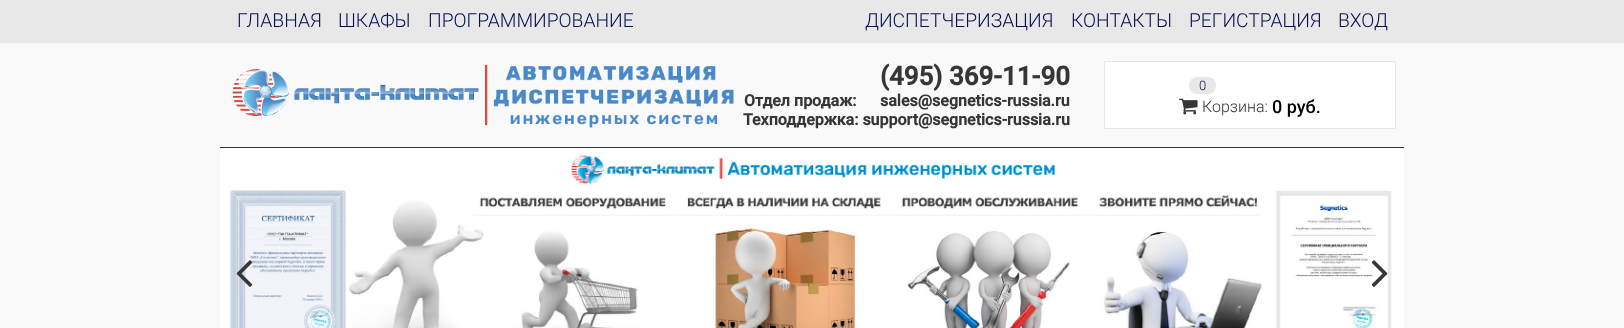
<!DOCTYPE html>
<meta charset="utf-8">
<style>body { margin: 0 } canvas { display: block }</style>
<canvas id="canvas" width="1624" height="328"></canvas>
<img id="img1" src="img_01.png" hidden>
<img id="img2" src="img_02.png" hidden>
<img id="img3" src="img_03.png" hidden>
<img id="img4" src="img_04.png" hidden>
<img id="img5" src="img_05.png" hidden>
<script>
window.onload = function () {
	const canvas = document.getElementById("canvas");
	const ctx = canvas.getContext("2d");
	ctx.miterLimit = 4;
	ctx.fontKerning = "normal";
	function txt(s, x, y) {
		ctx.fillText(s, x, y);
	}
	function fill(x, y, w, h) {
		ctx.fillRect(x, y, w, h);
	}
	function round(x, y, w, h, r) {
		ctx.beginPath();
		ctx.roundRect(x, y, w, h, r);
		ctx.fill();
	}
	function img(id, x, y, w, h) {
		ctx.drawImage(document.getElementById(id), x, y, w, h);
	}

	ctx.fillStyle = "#F9F9F9";
	fill(0, 0, 1624, 328);
	ctx.fillStyle = "#E8E8E8";
	fill(0, 0, 1624, 43);
	img("img1", 232, 64, 502, 64);
	ctx.fillStyle = "#FFFFFF";
	ctx.beginPath();
	ctx.rect(1104.5, 61.5, 291, 67);
	ctx.fill();
	ctx.strokeStyle = "#E7E5E5";
	ctx.stroke();
	ctx.fillStyle = "#E8E8E8";
	round(1189, 77, 27, 17, 8);
	img("img2", 1179, 98, 19, 17);
	ctx.fillStyle = "#363636";
	fill(220, 147, 1184, 1);
	img("img3", 220, 148, 1184, 180);
	img("img4", 236, 260, 17, 27);
	img("img5", 1371, 260, 17, 27);
	ctx.font = "300 19.25px Roboto";
	ctx.fillStyle = "#030F4F";
	txt("ГЛАВНАЯ", 237, 27);
	txt("ШКАФЫ", 338, 27);
	txt("ПРОГРАММИРОВАНИЕ", 428, 27);
	txt("ДИСПЕТЧЕРИЗАЦИЯ", 865, 27);
	txt("КОНТАКТЫ", 1071, 27);
	txt("РЕГИСТРАЦИЯ", 1189, 27);
	txt("ВХОД", 1338, 27);
	ctx.font = "bold 26px Roboto";
	ctx.fillStyle = "#363636";
	txt("(495) 369-11-90", 880, 85);
	ctx.font = "bold 16px Roboto";
	txt("Отдел продаж:", 744, 106);
	txt("sales@segnetics-russia.ru", 880, 106);
	txt("Техподдержка: support@segnetics-russia.ru", 743, 125);
	ctx.font = "300 13px Roboto";
	ctx.fillStyle = "#030F4F";
	txt("0", 1199, 90);
	ctx.font = "300 16px Roboto";
	ctx.fillStyle = "#363636";
	txt("Корзина:", 1202, 112);
	ctx.font = "500 18px Roboto";
	ctx.fillStyle = "#000000";
	txt("0 руб.", 1272, 113);
};
</script>
